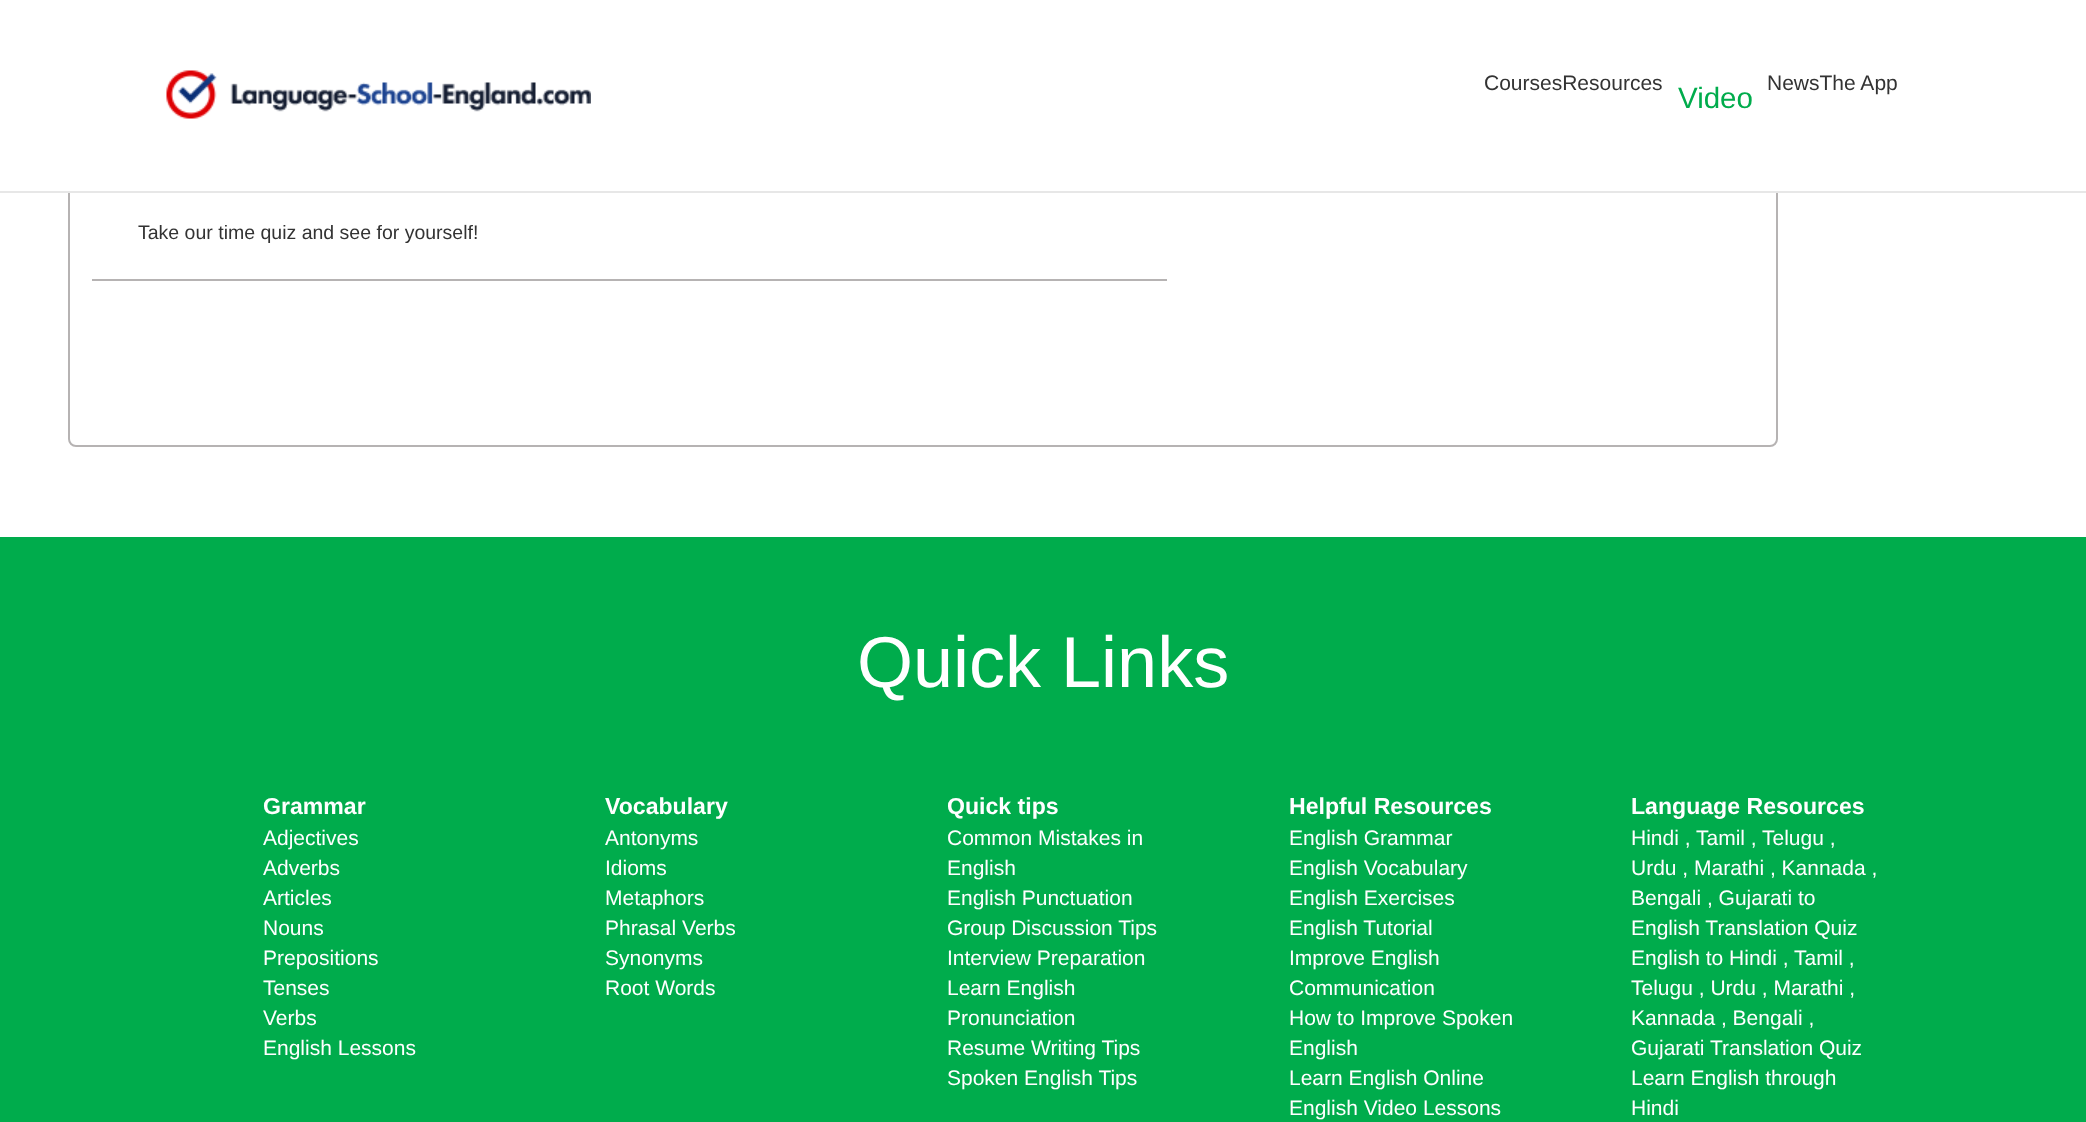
<!DOCTYPE html>
<meta charset="utf-8">
<style>body { margin: 0 } canvas { display: block }</style>
<canvas id="canvas" width="2086" height="1122"></canvas>
<img id="img1" src="img_01.png" hidden>
<script>
window.onload = function () {
	const canvas = document.getElementById("canvas");
	const ctx = canvas.getContext("2d");
	ctx.miterLimit = 4;
	ctx.fontKerning = "normal";
	function txt(s, x, y) {
		ctx.fillText(s, x, y);
	}
	function fill(x, y, w, h) {
		ctx.fillRect(x, y, w, h);
	}
	function img(id, x, y, w, h) {
		ctx.drawImage(document.getElementById(id), x, y, w, h);
	}

	ctx.fillStyle = "#FFFFFF";
	fill(0, 0, 2086, 1122);
	ctx.beginPath();
	ctx.roundRect(69, 36, 1708, 410, 7);
	ctx.strokeStyle = "#B6B3B3";
	ctx.lineWidth = 2;
	ctx.stroke();
	fill(68, 35, 1710, 156);
	ctx.fillStyle = "#E7E7E7";
	fill(0, 191, 2086, 2);
	img("img1", 166, 70, 425, 49);
	ctx.fillStyle = "#B6B3B3";
	fill(92, 279, 1075, 2);
	ctx.fillStyle = "#00AC4C";
	fill(0, 537, 2086, 585);
	ctx.font = "21px Liberation Sans";
	ctx.fillStyle = "#333333";
	txt("CoursesResources", 1484, 90);
	txt("NewsThe App", 1767, 90);
	ctx.font = "29.5px Liberation Sans";
	ctx.fillStyle = "#00AC4C";
	txt("Video", 1678, 108);
	ctx.font = "19.5px Liberation Sans";
	ctx.fillStyle = "#333333";
	txt("Take our time quiz and see for yourself!", 138, 239);
	ctx.font = "72px Liberation Sans";
	ctx.fillStyle = "#FFFFFF";
	txt("Quick Links", 857, 687);
	ctx.font = "bold 23.1px Liberation Sans";
	txt("Grammar", 263, 814);
	ctx.font = "21px Liberation Sans";
	txt("Adjectives", 263, 845);
	txt("Adverbs", 263, 875);
	txt("Articles", 263, 905);
	txt("Nouns", 263, 935);
	txt("Prepositions", 263, 965);
	txt("Tenses", 263, 995);
	txt("Verbs", 263, 1025);
	txt("English Lessons", 263, 1055);
	ctx.font = "bold 23.1px Liberation Sans";
	txt("Vocabulary", 605, 814);
	ctx.font = "21px Liberation Sans";
	txt("Antonyms", 605, 845);
	txt("Idioms", 605, 875);
	txt("Metaphors", 605, 905);
	txt("Phrasal Verbs", 605, 935);
	txt("Synonyms", 605, 965);
	txt("Root Words", 605, 995);
	ctx.font = "bold 23.1px Liberation Sans";
	txt("Quick tips", 947, 814);
	ctx.font = "21px Liberation Sans";
	txt("Common Mistakes in", 947, 845);
	txt("English", 947, 875);
	txt("English Punctuation", 947, 905);
	txt("Group Discussion Tips", 947, 935);
	txt("Interview Preparation", 947, 965);
	txt("Learn English", 947, 995);
	txt("Pronunciation", 947, 1025);
	txt("Resume Writing Tips", 947, 1055);
	txt("Spoken English Tips", 947, 1085);
	ctx.font = "bold 23.1px Liberation Sans";
	txt("Helpful Resources", 1289, 814);
	ctx.font = "21px Liberation Sans";
	txt("English Grammar", 1289, 845);
	txt("English Vocabulary", 1289, 875);
	txt("English Exercises", 1289, 905);
	txt("English Tutorial", 1289, 935);
	txt("Improve English", 1289, 965);
	txt("Communication", 1289, 995);
	txt("How to Improve Spoken", 1289, 1025);
	txt("English", 1289, 1055);
	txt("Learn English Online", 1289, 1085);
	txt("English Video Lessons", 1289, 1115);
	ctx.font = "bold 23.1px Liberation Sans";
	txt("Language Resources", 1631, 814);
	ctx.font = "21px Liberation Sans";
	txt("Hindi ,", 1631, 845);
	txt("Tamil ,", 1696, 845);
	txt("Telugu ,", 1762, 845);
	txt("Urdu , Marathi , Kannada ,", 1631, 875);
	txt("Bengali , Gujarati to", 1631, 905);
	txt("English Translation Quiz", 1631, 935);
	txt("English to Hindi ,", 1631, 965);
	txt("Tamil ,", 1794, 965);
	txt("Telugu , Urdu , Marathi ,", 1631, 995);
	txt("Kannada , Bengali ,", 1631, 1025);
	txt("Gujarati", 1631, 1055);
	txt("Translation Quiz", 1710, 1055);
	txt("Learn English through", 1631, 1085);
	txt("Hindi", 1631, 1115);
};
</script>
